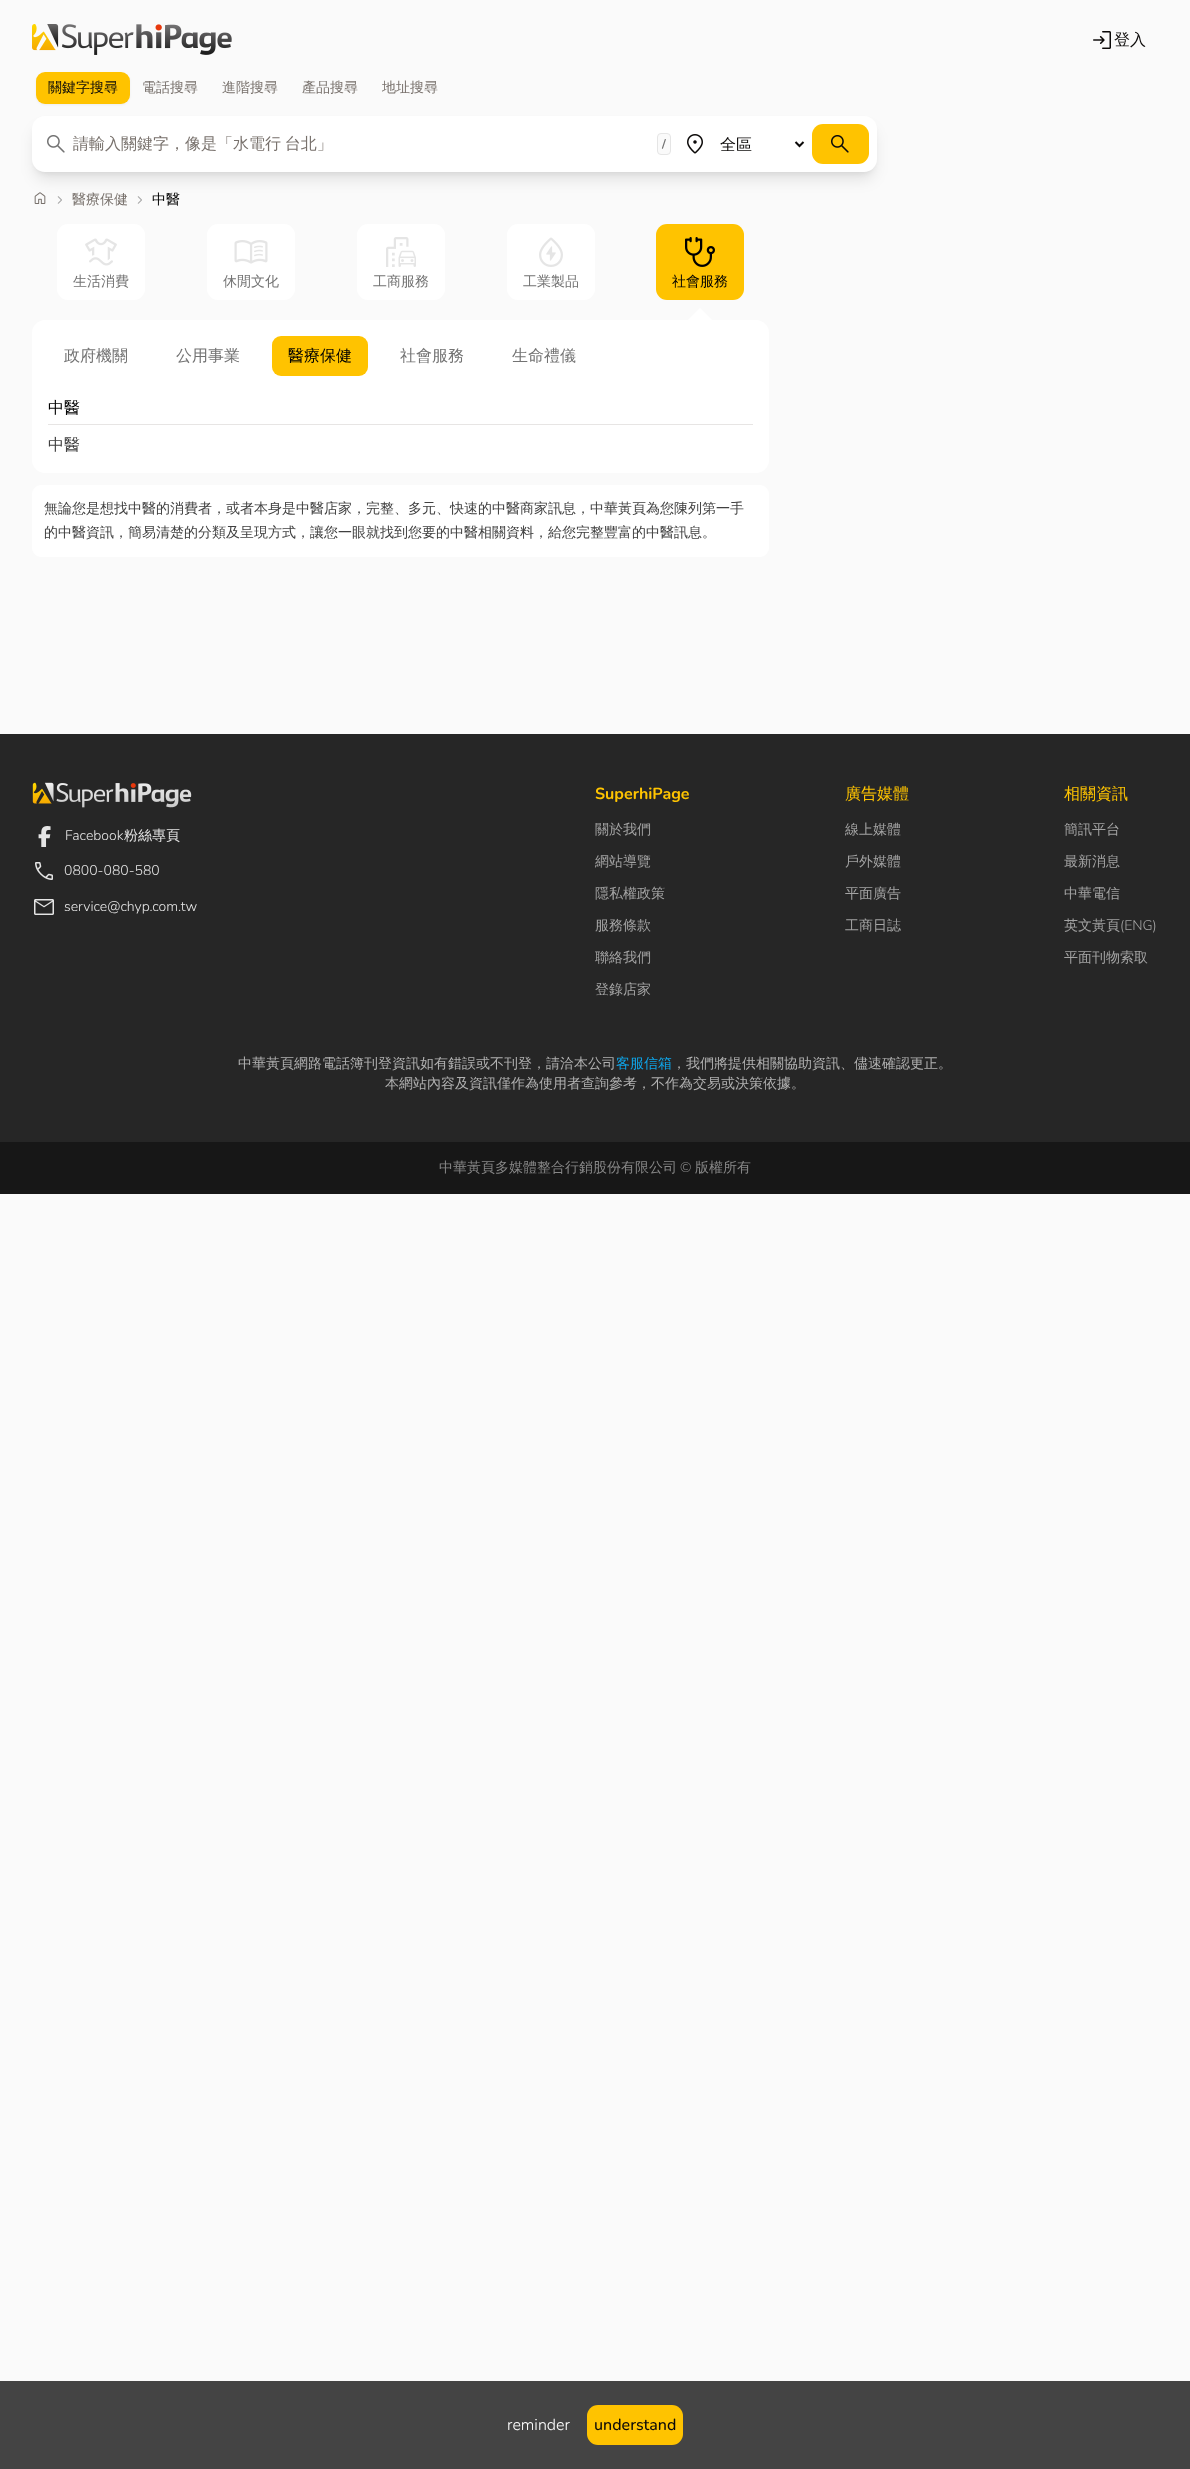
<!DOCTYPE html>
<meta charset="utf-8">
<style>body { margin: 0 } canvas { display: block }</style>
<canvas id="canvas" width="1190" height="2469"></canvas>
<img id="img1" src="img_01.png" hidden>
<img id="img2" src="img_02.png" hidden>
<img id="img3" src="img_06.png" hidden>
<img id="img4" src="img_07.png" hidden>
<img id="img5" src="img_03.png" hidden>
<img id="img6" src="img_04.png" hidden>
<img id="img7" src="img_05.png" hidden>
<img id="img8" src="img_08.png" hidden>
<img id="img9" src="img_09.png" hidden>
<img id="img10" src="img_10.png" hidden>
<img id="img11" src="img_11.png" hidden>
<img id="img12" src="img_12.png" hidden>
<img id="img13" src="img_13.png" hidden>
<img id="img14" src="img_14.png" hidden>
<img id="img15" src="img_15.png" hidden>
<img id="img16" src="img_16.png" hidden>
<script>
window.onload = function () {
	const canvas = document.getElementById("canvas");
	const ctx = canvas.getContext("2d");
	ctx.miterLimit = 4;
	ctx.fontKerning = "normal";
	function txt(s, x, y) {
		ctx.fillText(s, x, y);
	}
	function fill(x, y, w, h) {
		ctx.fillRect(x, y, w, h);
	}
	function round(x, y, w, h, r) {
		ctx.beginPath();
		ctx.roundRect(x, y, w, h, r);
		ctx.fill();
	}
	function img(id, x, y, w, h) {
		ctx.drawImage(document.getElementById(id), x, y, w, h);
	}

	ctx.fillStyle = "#FAFAFA";
	fill(0, 0, 1190, 2469);
	img("img1", 32, 24, 200, 31);
	img("img2", 1093, 31, 18, 18);
	ctx.fillStyle = "rgba(0, 0, 0, 0.05)";
	ctx.filter = "blur(1px)";
	ctx.beginPath();
	ctx.roundRect(36, 73, 94, 32, 9);
	ctx.fill();
	ctx.filter = "none";
	ctx.fillStyle = "#FFC300";
	round(36, 72, 94, 32, 9);
	ctx.fillStyle = "rgba(0, 0, 0, 0.1)";
	ctx.filter = "blur(3px)";
	ctx.beginPath();
	ctx.roundRect(36, 124, 837, 48, 9);
	ctx.fill();
	ctx.filter = "none";
	img("img3", 34, 192, 12, 12);
	img("img4", 57, 196, 5, 8);
	img("img4", 137, 196, 5, 8);
	ctx.filter = "blur(7.5px)";
	ctx.beginPath();
	ctx.roundRect(35, 129, 839, 50, 10);
	ctx.fill();
	ctx.filter = "none";
	ctx.fillStyle = "#FFFFFF";
	round(32, 116, 845, 56, 13);
	img("img5", 47, 135, 18, 18);
	ctx.fillStyle = "#FAFAFA";
	ctx.beginPath();
	ctx.roundRect(657.5, 133.5, 13, 21, 3.5);
	ctx.fill();
	ctx.strokeStyle = "#E5E5E5";
	ctx.stroke();
	img("img6", 687, 134, 16, 20);
	ctx.beginPath();
	ctx.moveTo(795.5, 142);
	ctx.lineTo(799.5, 146);
	ctx.lineTo(803.5, 142);
	ctx.strokeStyle = "#0C0A09";
	ctx.lineWidth = 2;
	ctx.stroke();
	ctx.fillStyle = "#FFC300";
	round(812, 124, 57, 40, 11);
	img("img7", 831, 135, 18, 18);
	ctx.fillStyle = "#FFFFFF";
	round(57, 224, 88, 76, 11);
	img("img8", 85, 238, 32, 28);
	round(207, 224, 88, 76, 11);
	img("img9", 234, 240, 34, 24);
	round(357, 224, 88, 76, 11);
	img("img10", 386, 237, 30, 30);
	round(507, 224, 88, 76, 11);
	img("img11", 539, 237, 24, 30);
	ctx.fillStyle = "#FFC300";
	round(656, 224, 88, 76, 11);
	img("img12", 685, 237, 30, 30);
	ctx.fillStyle = "#FFFFFF";
	ctx.beginPath();
	ctx.moveTo(712, 320);
	ctx.lineTo(688, 320);
	ctx.lineTo(700, 308);
	ctx.closePath();
	ctx.fill();
	round(32, 320, 737, 153, 13);
	ctx.fillStyle = "#FFC300";
	round(272, 336, 96, 40, 9);
	ctx.fillStyle = "#E7E5E4";
	fill(48, 424, 705, 1);
	ctx.fillStyle = "#FFFFFF";
	round(32, 485, 737, 72, 9);
	ctx.fillStyle = "#171717";
	fill(0, 1142, 1190, 52);
	ctx.fillStyle = "#262626";
	fill(0, 734, 1190, 408);
	img("img13", 32, 782, 160, 26);
	img("img14", 38, 826, 13, 21);
	img("img15", 35, 862, 18, 18);
	img("img16", 34, 899, 20, 16);
	ctx.fillStyle = "#444444";
	fill(0, 2381, 1190, 88);
	ctx.fillStyle = "#FFC300";
	round(587, 2405, 96, 40, 11);
	ctx.font = "500 16px WenQuanYi Zen Hei";
	ctx.fillStyle = "#0C0A09";
	txt("登入", 1114, 45);
	ctx.font = "500 14px WenQuanYi Zen Hei";
	txt("關鍵字搜尋", 48, 92);
	ctx.fillStyle = "#78716C";
	txt("電話搜尋", 142, 92);
	txt("進階搜尋", 222, 92);
	txt("產品搜尋", 302, 92);
	txt("地址搜尋", 382, 92);
	ctx.wordSpacing = "-1px";
	ctx.font = "500 16px WenQuanYi Zen Hei";
	txt("請輸入關鍵字，像是「水電行 台北」", 73, 149);
	ctx.wordSpacing = "0px";
	ctx.font = "bold 12px Nunito";
	ctx.fillStyle = "#737373";
	txt("/", 662, 148);
	ctx.font = "500 16px WenQuanYi Zen Hei";
	ctx.fillStyle = "#0C0A09";
	txt("全區", 720, 150);
	ctx.font = "500 14px WenQuanYi Zen Hei";
	ctx.fillStyle = "#78716C";
	txt("醫療保健", 72, 204);
	ctx.fillStyle = "#000000";
	txt("中醫", 152, 204);
	ctx.fillStyle = "#737373";
	txt("生活消費", 73, 286);
	txt("休閒文化", 223, 286);
	txt("工商服務", 373, 286);
	txt("工業製品", 523, 286);
	ctx.fillStyle = "#000000";
	txt("社會服務", 672, 286);
	ctx.font = "500 16px WenQuanYi Zen Hei";
	ctx.fillStyle = "#737373";
	txt("政府機關", 64, 361);
	txt("公用事業", 176, 361);
	ctx.fillStyle = "#000000";
	txt("醫療保健", 288, 361);
	ctx.fillStyle = "#737373";
	txt("社會服務", 400, 361);
	txt("生命禮儀", 512, 361);
	ctx.fillStyle = "#000000";
	txt("中醫", 48, 413);
	ctx.fillStyle = "#404040";
	txt("中醫", 48, 450);
	ctx.font = "500 14px WenQuanYi Zen Hei";
	txt("無論您是想找中醫的消費者，或者本身是中醫店家，完整、多元、快速的中醫商家訊息，中華黃頁為您陳列第一手", 44, 513);
	txt("的中醫資訊，簡易清楚的分類及呈現方式，讓您一眼就找到您要的中醫相關資料，給您完整豐富的中醫訊息。", 44, 537);
	ctx.font = "300 14px Nunito";
	ctx.fillStyle = "#E5E5E5";
	txt("Facebook", 65, 840);
	ctx.font = "500 14px WenQuanYi Zen Hei";
	txt("粉絲專頁", 124, 840);
	ctx.font = "300 14px Nunito";
	txt("0800-080-580", 64, 875);
	txt("service@chyp.com.tw", 64, 911);
	ctx.font = "bold 16px Nunito";
	ctx.fillStyle = "#FFC400";
	txt("SuperhiPage", 595, 799);
	ctx.font = "500 14px WenQuanYi Zen Hei";
	ctx.fillStyle = "#A3A3A3";
	txt("關於我們", 595, 834);
	txt("網站導覽", 595, 866);
	txt("隱私權政策", 595, 898);
	txt("服務條款", 595, 930);
	txt("聯絡我們", 595, 962);
	txt("登錄店家", 595, 994);
	ctx.font = "500 16px WenQuanYi Zen Hei";
	ctx.fillStyle = "#FFC400";
	txt("廣告媒體", 845, 799);
	ctx.font = "500 14px WenQuanYi Zen Hei";
	ctx.fillStyle = "#A3A3A3";
	txt("線上媒體", 845, 834);
	txt("戶外媒體", 845, 866);
	txt("平面廣告", 845, 898);
	txt("工商日誌", 845, 930);
	ctx.font = "500 16px WenQuanYi Zen Hei";
	ctx.fillStyle = "#FFC400";
	txt("相關資訊", 1064, 799);
	ctx.font = "500 14px WenQuanYi Zen Hei";
	ctx.fillStyle = "#A3A3A3";
	txt("簡訊平台", 1064, 834);
	txt("最新消息", 1064, 866);
	txt("中華電信", 1064, 898);
	txt("英文黃頁", 1064, 930);
	ctx.font = "300 14px Nunito";
	txt("(ENG)", 1120, 930);
	ctx.font = "500 14px WenQuanYi Zen Hei";
	txt("平面刊物索取", 1064, 962);
	ctx.fillStyle = "#B1B1B1";
	txt("中華黃頁網路電話簿刊登資訊如有錯誤或不刊登，請洽本公司", 238, 1068);
	ctx.fillStyle = "#0EA5E9";
	txt("客服信箱", 616, 1068);
	ctx.fillStyle = "#B1B1B1";
	txt("，我們將提供相關協助資訊、儘速確認更正。", 672, 1068);
	txt("本網站內容及資訊僅作為使用者查詢參考，不作為交易或決策依據。", 385, 1088);
	ctx.fillStyle = "#878787";
	txt("中華黃頁多媒體整合行銷股份有限公司", 439, 1172);
	ctx.font = "300 14px Nunito";
	txt("©", 680, 1172);
	ctx.font = "500 14px WenQuanYi Zen Hei";
	txt("版權所有", 695, 1172);
	ctx.font = "300 16px Nunito";
	ctx.fillStyle = "#FFFFFF";
	txt("reminder", 507, 2430);
	ctx.font = "500 16px Nunito";
	ctx.fillStyle = "#0C0A09";
	txt("understand", 594, 2430);
};
</script>
